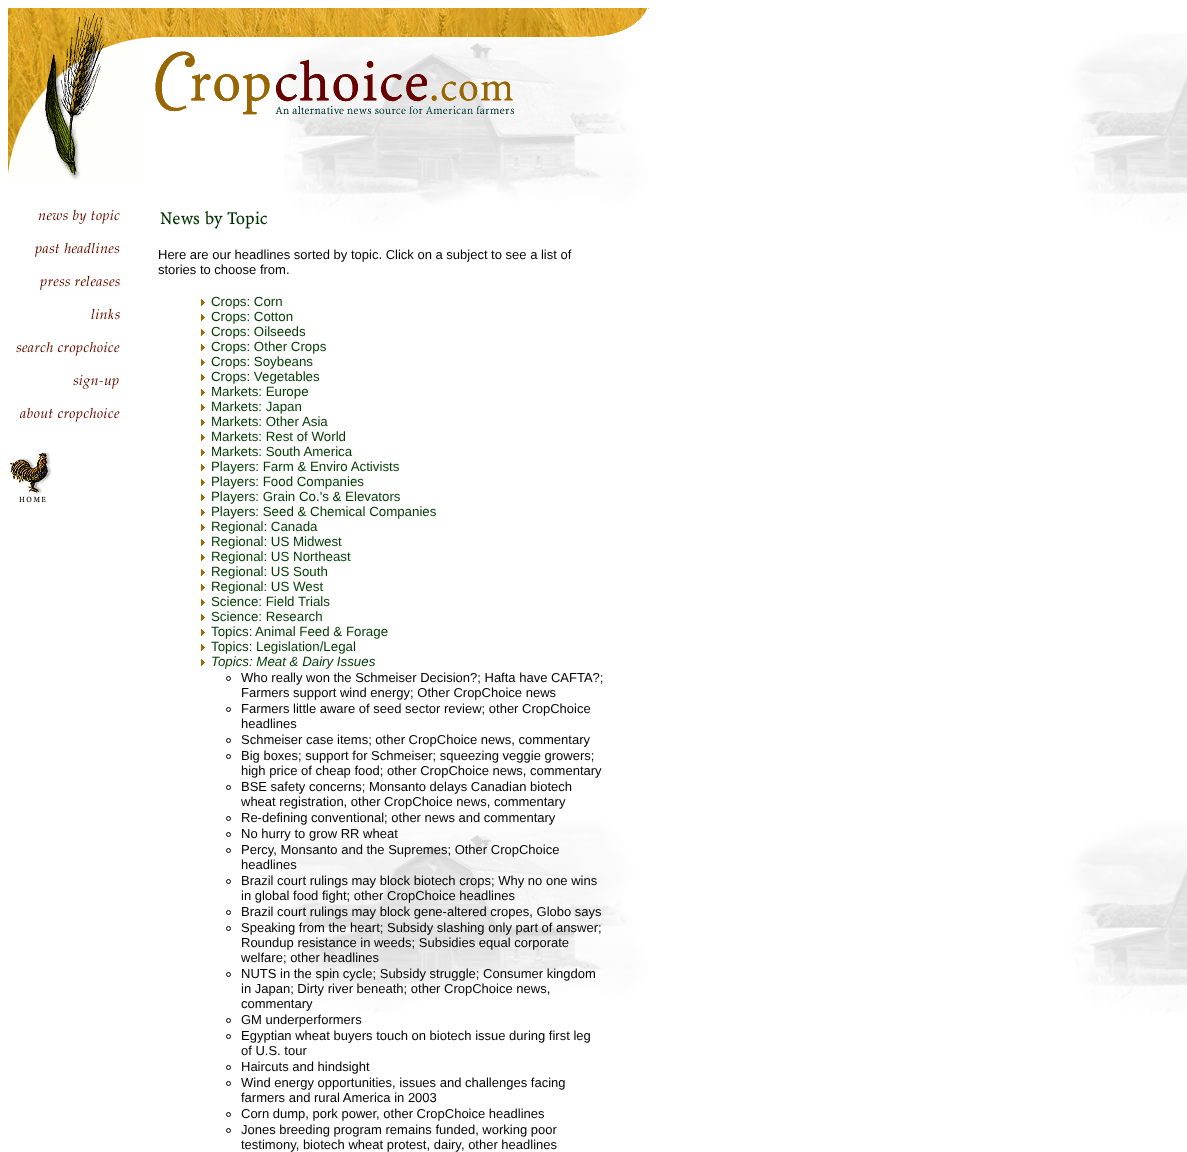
<!DOCTYPE html>
<meta charset="utf-8">
<style>body { margin: 0 } canvas { display: block }</style>
<canvas id="canvas" width="1187" height="1152"></canvas>
<img id="img1" src="img_01.png" hidden>
<img id="img2" src="img_02.png" hidden>
<img id="img3" src="img_03.png" hidden>
<img id="img4" src="img_04.png" hidden>
<img id="img5" src="img_05.png" hidden>
<img id="img6" src="img_06.png" hidden>
<img id="img7" src="img_07.png" hidden>
<img id="img8" src="img_08.png" hidden>
<img id="img9" src="img_09.png" hidden>
<img id="img10" src="img_10.png" hidden>
<img id="img11" src="img_11.png" hidden>
<img id="img12" src="img_12.png" hidden>
<img id="img13" src="img_13.png" hidden>
<script>
window.onload = function () {
	const canvas = document.getElementById("canvas");
	const ctx = canvas.getContext("2d");
	ctx.miterLimit = 4;
	ctx.fontKerning = "normal";
	function txt(s, x, y) {
		ctx.fillText(s, x, y);
	}
	function fill(x, y, w, h) {
		ctx.fillRect(x, y, w, h);
	}
	function img(id, x, y, w, h) {
		ctx.drawImage(document.getElementById(id), x, y, w, h);
	}

	ctx.fillStyle = "#FFFFFF";
	fill(0, 0, 1187, 1152);
	img("img1", 284, 33, 903, 980);
	img("img2", 8, 8, 136, 172);
	img("img3", 144, 8, 505, 107);
	img("img4", 38, 209, 82, 15);
	img("img5", 35, 242, 85, 15);
	img("img6", 40, 275, 80, 15);
	img("img7", 91, 308, 29, 12);
	img("img8", 16, 341, 104, 15);
	img("img9", 73, 375, 46, 14);
	img("img10", 20, 407, 100, 15);
	img("img11", 10, 451, 42, 52);
	img("img12", 160, 211, 107, 18);
	img("img13", 201, 299, 4, 7);
	img("img13", 201, 314, 4, 7);
	img("img13", 201, 329, 4, 7);
	img("img13", 201, 344, 4, 7);
	img("img13", 201, 359, 4, 7);
	img("img13", 201, 374, 4, 7);
	img("img13", 201, 389, 4, 7);
	img("img13", 201, 404, 4, 7);
	img("img13", 201, 419, 4, 7);
	img("img13", 201, 434, 4, 7);
	img("img13", 201, 449, 4, 7);
	img("img13", 201, 464, 4, 7);
	img("img13", 201, 479, 4, 7);
	img("img13", 201, 494, 4, 7);
	img("img13", 201, 509, 4, 7);
	img("img13", 201, 524, 4, 7);
	img("img13", 201, 539, 4, 7);
	img("img13", 201, 554, 4, 7);
	img("img13", 201, 569, 4, 7);
	img("img13", 201, 584, 4, 7);
	img("img13", 201, 599, 4, 7);
	img("img13", 201, 614, 4, 7);
	img("img13", 201, 629, 4, 7);
	img("img13", 201, 644, 4, 7);
	img("img13", 201, 659, 4, 7);
	ctx.beginPath();
	ctx.arc(228.5, 678.5, 2, 0, Math.PI * 2);
	ctx.strokeStyle = "#000000";
	ctx.stroke();
	ctx.beginPath();
	ctx.arc(228.5, 709.5, 2, 0, Math.PI * 2);
	ctx.stroke();
	ctx.beginPath();
	ctx.arc(228.5, 740.5, 2, 0, Math.PI * 2);
	ctx.stroke();
	ctx.beginPath();
	ctx.arc(228.5, 756.5, 2, 0, Math.PI * 2);
	ctx.stroke();
	ctx.beginPath();
	ctx.arc(228.5, 787.5, 2, 0, Math.PI * 2);
	ctx.stroke();
	ctx.beginPath();
	ctx.arc(228.5, 818.5, 2, 0, Math.PI * 2);
	ctx.stroke();
	ctx.beginPath();
	ctx.arc(228.5, 834.5, 2, 0, Math.PI * 2);
	ctx.stroke();
	ctx.beginPath();
	ctx.arc(228.5, 850.5, 2, 0, Math.PI * 2);
	ctx.stroke();
	ctx.beginPath();
	ctx.arc(228.5, 881.5, 2, 0, Math.PI * 2);
	ctx.stroke();
	ctx.beginPath();
	ctx.arc(228.5, 912.5, 2, 0, Math.PI * 2);
	ctx.stroke();
	ctx.beginPath();
	ctx.arc(228.5, 928.5, 2, 0, Math.PI * 2);
	ctx.stroke();
	ctx.beginPath();
	ctx.arc(228.5, 974.5, 2, 0, Math.PI * 2);
	ctx.stroke();
	ctx.beginPath();
	ctx.arc(228.5, 1020.5, 2, 0, Math.PI * 2);
	ctx.stroke();
	ctx.beginPath();
	ctx.arc(228.5, 1036.5, 2, 0, Math.PI * 2);
	ctx.stroke();
	ctx.beginPath();
	ctx.arc(228.5, 1067.5, 2, 0, Math.PI * 2);
	ctx.stroke();
	ctx.beginPath();
	ctx.arc(228.5, 1083.5, 2, 0, Math.PI * 2);
	ctx.stroke();
	ctx.beginPath();
	ctx.arc(228.5, 1114.5, 2, 0, Math.PI * 2);
	ctx.stroke();
	ctx.beginPath();
	ctx.arc(228.5, 1130.5, 2, 0, Math.PI * 2);
	ctx.stroke();
	ctx.font = "13px Liberation Sans";
	ctx.fillStyle = "#000000";
	txt("Here are our headlines sorted by topic. Click on a subject to see a list of", 158, 259);
	txt("stories to choose from.", 158, 274);
	ctx.font = "13.3px Liberation Sans";
	ctx.fillStyle = "#003A00";
	txt("Crops: Corn", 211, 306);
	txt("Crops: Cotton", 211, 321);
	txt("Crops: Oilseeds", 211, 336);
	txt("Crops: Other Crops", 211, 351);
	txt("Crops: Soybeans", 211, 366);
	txt("Crops: Vegetables", 211, 381);
	txt("Markets: Europe", 211, 396);
	txt("Markets: Japan", 211, 411);
	txt("Markets: Other Asia", 211, 426);
	txt("Markets: Rest of World", 211, 441);
	txt("Markets: South America", 211, 456);
	txt("Players: Farm & Enviro Activists", 211, 471);
	txt("Players: Food Companies", 211, 486);
	txt("Players: Grain Co.'s & Elevators", 211, 501);
	txt("Players: Seed & Chemical Companies", 211, 516);
	txt("Regional: Canada", 211, 531);
	txt("Regional: US Midwest", 211, 546);
	txt("Regional: US Northeast", 211, 561);
	txt("Regional: US South", 211, 576);
	txt("Regional: US West", 211, 591);
	txt("Science: Field Trials", 211, 606);
	txt("Science: Research", 211, 621);
	txt("Topics:", 211, 636);
	txt("Animal Feed & Forage", 255, 636);
	txt("Topics: Legislation/Legal", 211, 651);
	ctx.font = "italic 13.3px Liberation Sans";
	txt("Topics: Meat & Dairy Issues", 211, 666);
	ctx.font = "13px Liberation Sans";
	ctx.fillStyle = "#000000";
	txt("Who really won the Schmeiser Decision?; Hafta have CAFTA?;", 241, 682);
	txt("Farmers support wind energy; Other CropChoice news", 241, 697);
	txt("Farmers little aware of seed sector review; other CropChoice", 241, 713);
	txt("headlines", 241, 728);
	txt("Schmeiser case items; other CropChoice news, commentary", 241, 744);
	txt("Big boxes; support for Schmeiser; squeezing veggie growers;", 241, 760);
	txt("high price of cheap food; other CropChoice news, commentary", 241, 775);
	txt("BSE safety concerns; Monsanto delays Canadian biotech", 241, 791);
	txt("wheat registration, other CropChoice news, commentary", 241, 806);
	txt("Re-defining conventional; other news and commentary", 241, 822);
	txt("No hurry to grow RR wheat", 241, 838);
	txt("Percy, Monsanto and the Supremes; Other CropChoice", 241, 854);
	txt("headlines", 241, 869);
	txt("Brazil court rulings may block biotech crops; Why no one wins", 241, 885);
	txt("in global food fight; other CropChoice headlines", 241, 900);
	txt("Brazil court rulings may block gene-altered cropes, Globo says", 241, 916);
	txt("Speaking from the heart; Subsidy slashing only part of answer;", 241, 932);
	txt("Roundup resistance in weeds; Subsidies equal corporate", 241, 947);
	txt("welfare; other headlines", 241, 962);
	txt("NUTS in the spin cycle; Subsidy struggle; Consumer kingdom", 241, 978);
	txt("in Japan; Dirty river beneath; other CropChoice news,", 241, 993);
	txt("commentary", 241, 1008);
	txt("GM underperformers", 241, 1024);
	txt("Egyptian wheat buyers touch on biotech issue during first leg", 241, 1040);
	txt("of U.S. tour", 241, 1055);
	txt("Haircuts and hindsight", 241, 1071);
	txt("Wind energy opportunities, issues and challenges facing", 241, 1087);
	txt("farmers and rural America in 2003", 241, 1102);
	txt("Corn dump, pork power, other CropChoice headlines", 241, 1118);
	txt("Jones breeding program remains funded, working poor", 241, 1134);
	txt("testimony, biotech wheat protest, dairy, other headlines", 241, 1149);
};
</script>
